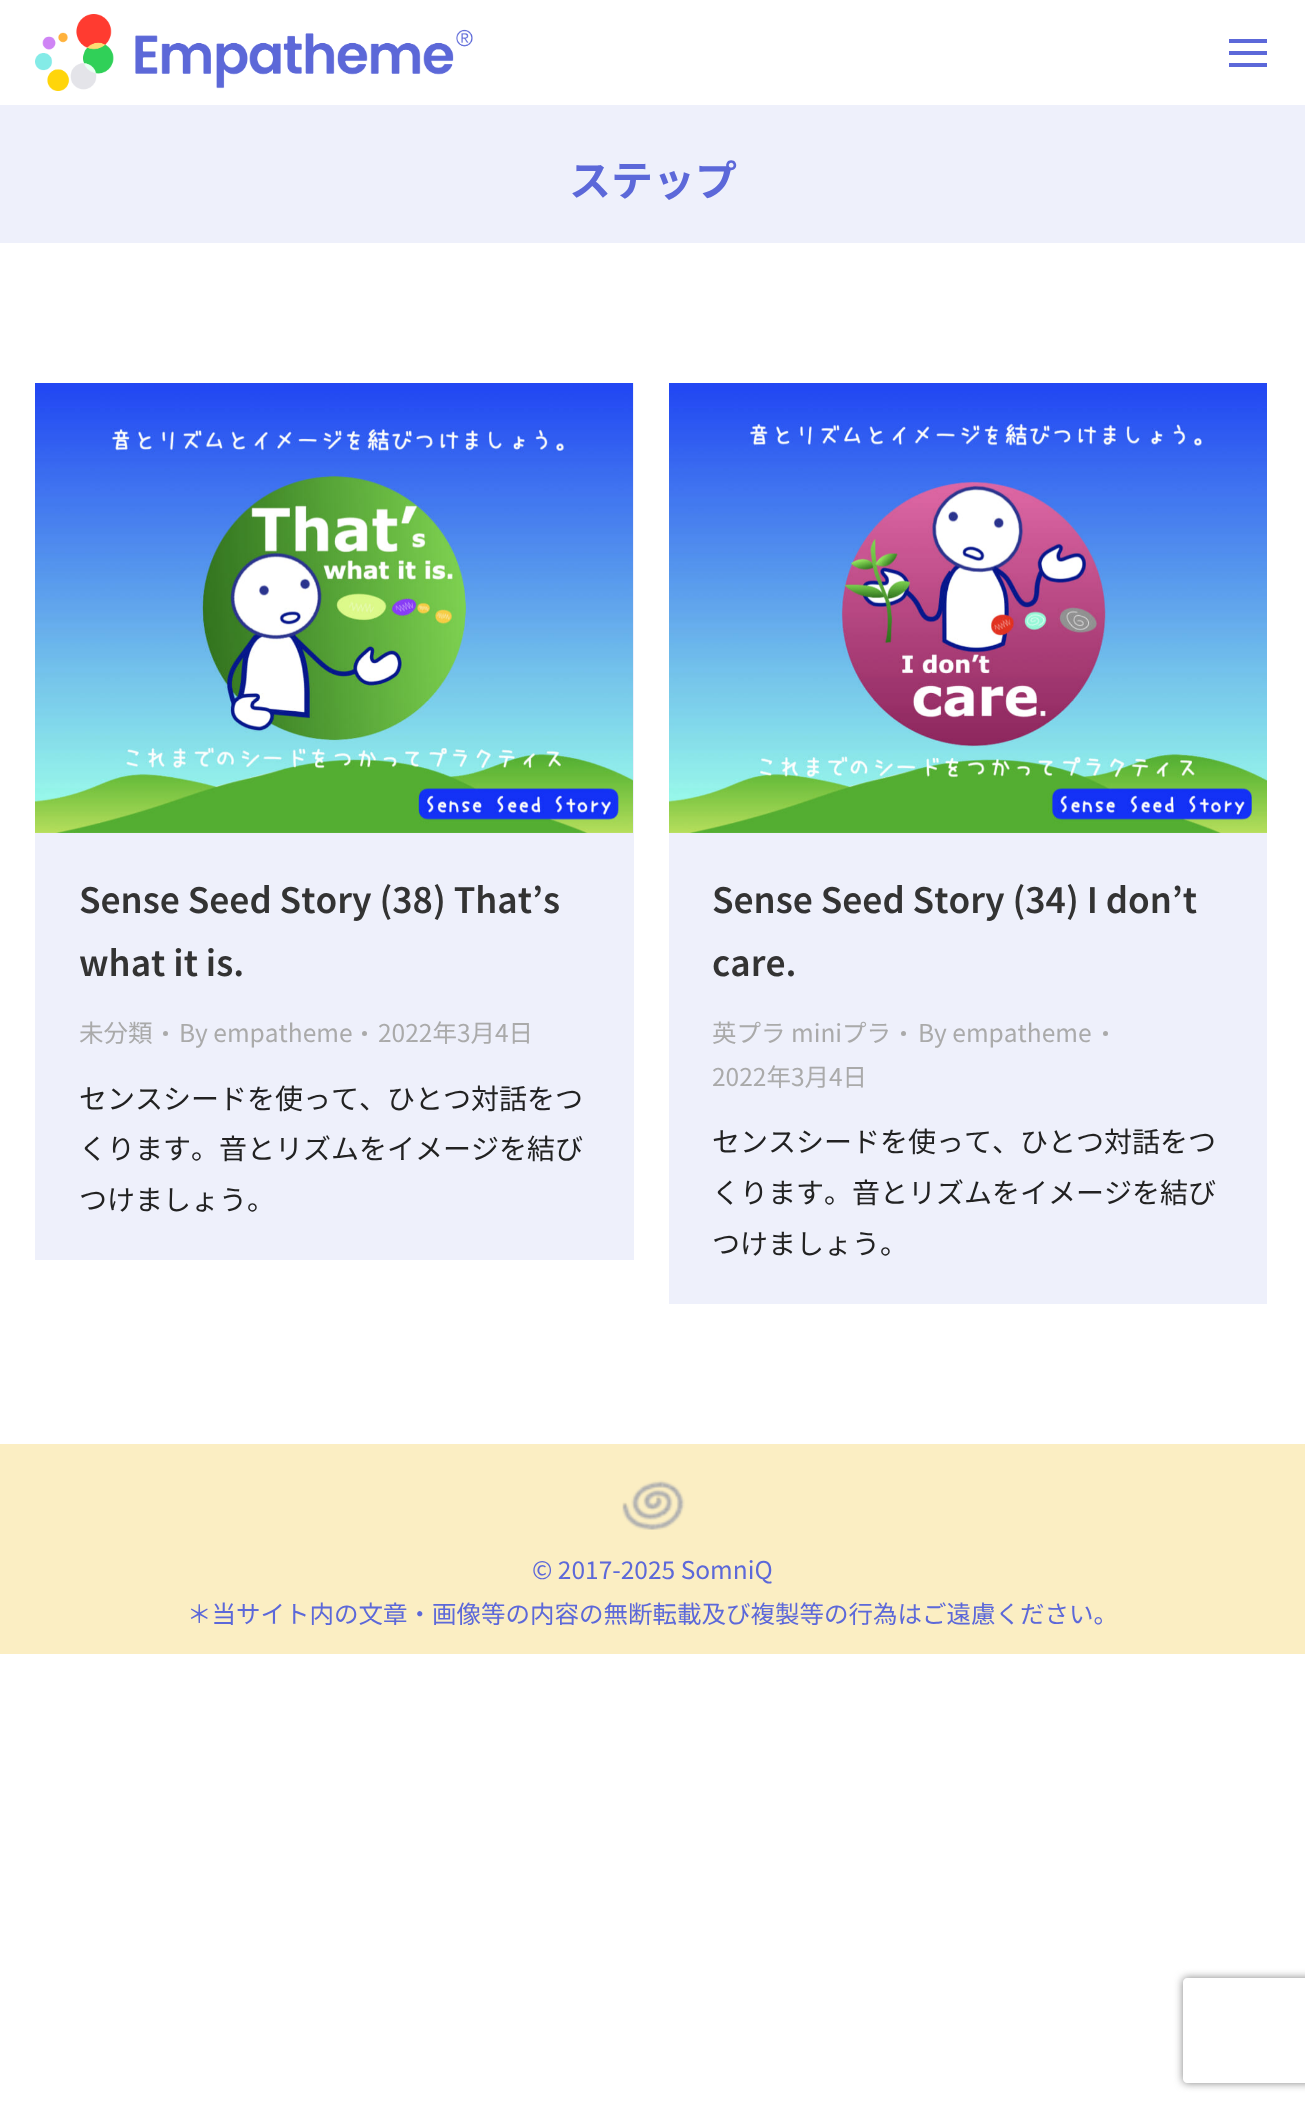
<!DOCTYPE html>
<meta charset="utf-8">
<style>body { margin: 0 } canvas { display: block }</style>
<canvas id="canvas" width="1305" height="2106"></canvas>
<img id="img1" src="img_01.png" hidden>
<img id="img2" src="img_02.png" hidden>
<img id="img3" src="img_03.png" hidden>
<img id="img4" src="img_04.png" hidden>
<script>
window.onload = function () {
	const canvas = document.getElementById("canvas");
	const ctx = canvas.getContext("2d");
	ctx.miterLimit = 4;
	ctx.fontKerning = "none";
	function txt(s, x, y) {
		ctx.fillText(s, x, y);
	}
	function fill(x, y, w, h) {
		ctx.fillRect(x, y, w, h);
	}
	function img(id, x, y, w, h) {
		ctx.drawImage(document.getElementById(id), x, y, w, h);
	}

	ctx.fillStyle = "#FFFFFF";
	fill(0, 0, 1305, 2106);
	img("img1", 35, 14, 438, 77);
	ctx.fillStyle = "#5C68D9";
	fill(1229, 39, 38, 4);
	fill(1229, 51, 38, 4);
	fill(1229, 63, 38, 4);
	ctx.fillStyle = "#EEF0FB";
	fill(0, 105, 1305, 138);
	fill(35, 383, 599, 877);
	img("img2", 35, 383, 598, 450);
	ctx.fillStyle = "#AAAAAA";
	ctx.beginPath();
	ctx.arc(165.5, 1033.5, 2.5, 0, Math.PI * 2);
	ctx.fill();
	ctx.beginPath();
	ctx.arc(364.5, 1033.5, 2.5, 0, Math.PI * 2);
	ctx.fill();
	ctx.fillStyle = "#EEF0FB";
	fill(669, 832, 598, 472);
	img("img3", 669, 383, 598, 450);
	ctx.fillStyle = "#AAAAAA";
	ctx.beginPath();
	ctx.arc(903.5, 1033.5, 2.5, 0, Math.PI * 2);
	ctx.fill();
	ctx.beginPath();
	ctx.arc(1105.5, 1033.5, 2.5, 0, Math.PI * 2);
	ctx.fill();
	ctx.fillStyle = "#FBEEC3";
	fill(0, 1444, 1305, 210);
	img("img4", 622, 1480, 63, 50);
	ctx.save();
	ctx.beginPath();
	ctx.moveTo(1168, 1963);
	ctx.lineTo(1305, 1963);
	ctx.lineTo(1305, 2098);
	ctx.lineTo(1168, 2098);
	ctx.closePath();
	ctx.moveTo(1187, 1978);
	ctx.lineTo(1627, 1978);
	ctx.bezierCurveTo(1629, 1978, 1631, 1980, 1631, 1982);
	ctx.lineTo(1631, 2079);
	ctx.bezierCurveTo(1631, 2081, 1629, 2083, 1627, 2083);
	ctx.lineTo(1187, 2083);
	ctx.bezierCurveTo(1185, 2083, 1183, 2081, 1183, 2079);
	ctx.lineTo(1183, 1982);
	ctx.bezierCurveTo(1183, 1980, 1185, 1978, 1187, 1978);
	ctx.closePath();
	ctx.clip("evenodd");
	ctx.fillStyle = "#808080";
	ctx.filter = "blur(4.5px)";
	ctx.beginPath();
	ctx.roundRect(1183, 1978, 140, 105, 4);
	ctx.fill();
	ctx.filter = "none";
	ctx.restore();
	ctx.font = "bold 42px Noto Sans JP";
	ctx.fillStyle = "#5C68D9";
	txt("ステップ", 569, 196);
	ctx.font = "600 35px Noto Sans JP";
	ctx.fillStyle = "#333333";
	txt("Sense Seed Story (38) That’s", 79, 913);
	txt("what it is.", 79, 976);
	ctx.font = "24.5px Noto Sans JP";
	ctx.fillStyle = "#AAAAAA";
	txt("未分類", 79, 1042);
	txt("By empatheme", 179, 1042);
	txt("2022年3月4日", 378, 1042);
	ctx.font = "28px Noto Sans JP";
	ctx.fillStyle = "#222222";
	txt("センスシードを使って、ひと", 79, 1109);
	txt("つ対話をつ", 443, 1109);
	txt("くります。音とリズムをイメージを結び", 79, 1159);
	txt("つけましょう。", 79, 1210);
	ctx.font = "600 35px Noto Sans JP";
	ctx.fillStyle = "#333333";
	txt("Sense Seed Story (34) I don’t", 712, 913);
	txt("care.", 712, 976);
	ctx.font = "24.5px Noto Sans JP";
	ctx.fillStyle = "#AAAAAA";
	txt("英プラ miniプラ", 712, 1042);
	txt("By empatheme", 918, 1042);
	txt("2022年3月4日", 712, 1086);
	ctx.font = "28px Noto Sans JP";
	ctx.fillStyle = "#222222";
	txt("センスシードを使って、ひと", 712, 1152);
	txt("つ対話をつ", 1076, 1152);
	txt("くります。音とリズムをイメージを結び", 712, 1203);
	txt("つけましょう。", 712, 1254);
	ctx.font = "24.5px Noto Sans JP";
	ctx.fillStyle = "#5C68D9";
	txt("© 2017-2025 SomniQ", 532, 1579);
	txt("＊当サイト内の文章・画像等の内容の無断転載及び複製等の行為はご遠慮ください。", 187, 1623);
};
</script>
